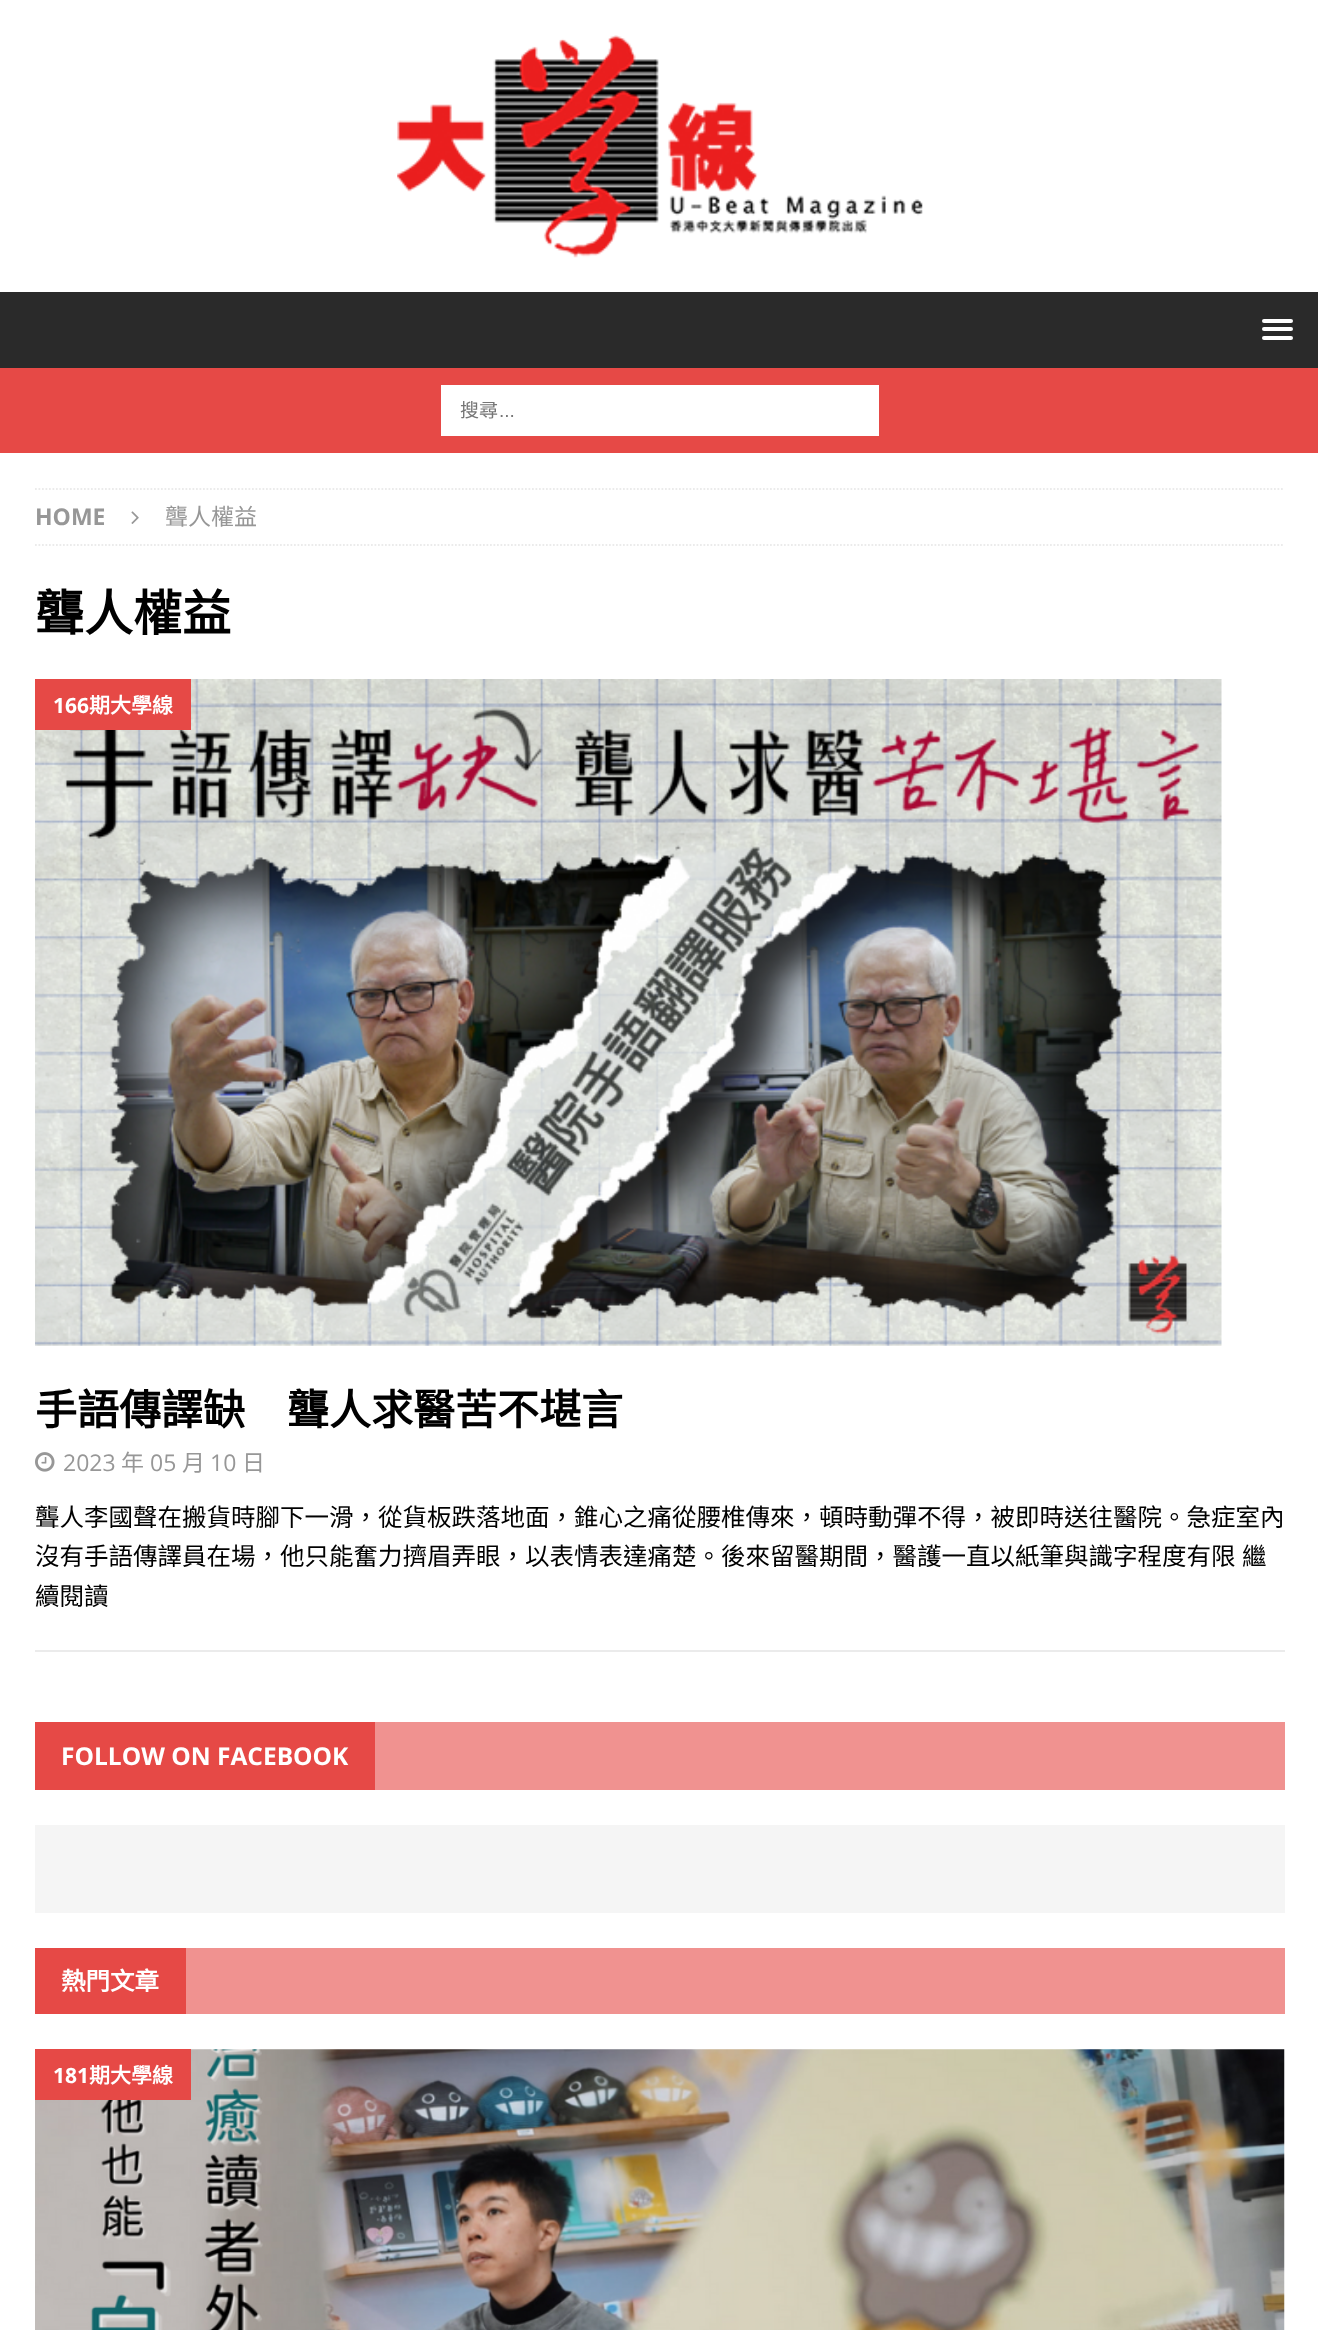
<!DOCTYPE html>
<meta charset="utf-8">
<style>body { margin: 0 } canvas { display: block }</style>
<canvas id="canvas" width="1318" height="2330"></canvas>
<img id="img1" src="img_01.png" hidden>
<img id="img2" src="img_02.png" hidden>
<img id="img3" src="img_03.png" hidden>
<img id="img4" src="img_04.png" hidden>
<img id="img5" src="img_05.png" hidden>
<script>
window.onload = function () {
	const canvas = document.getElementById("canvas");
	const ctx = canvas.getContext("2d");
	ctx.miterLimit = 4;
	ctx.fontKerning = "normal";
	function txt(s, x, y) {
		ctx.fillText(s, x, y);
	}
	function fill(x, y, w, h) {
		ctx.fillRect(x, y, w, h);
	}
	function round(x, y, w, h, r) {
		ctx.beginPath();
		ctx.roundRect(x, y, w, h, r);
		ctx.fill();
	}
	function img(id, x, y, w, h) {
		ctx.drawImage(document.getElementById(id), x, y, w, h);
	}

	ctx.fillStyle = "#FFFFFF";
	fill(0, 0, 1318, 2330);
	img("img1", 397, 35, 526, 223);
	ctx.fillStyle = "#2A2A2A";
	fill(0, 292, 1318, 76);
	ctx.fillStyle = "#FFFFFF";
	round(1262, 319, 31, 4, 2);
	round(1262, 327, 31, 4, 2);
	round(1262, 336, 31, 4, 2);
	ctx.fillStyle = "#E64946";
	fill(0, 368, 1318, 85);
	ctx.fillStyle = "#FFFFFF";
	fill(441, 385, 438, 51);
	ctx.beginPath();
	ctx.moveTo(35, 489);
	ctx.lineTo(1284.5, 489);
	ctx.strokeStyle = "#EBEBEB";
	ctx.lineWidth = 1.8;
	ctx.setLineDash([1.75, 1.75]);
	ctx.stroke();
	ctx.beginPath();
	ctx.moveTo(35, 545);
	ctx.lineTo(1284.5, 545);
	ctx.stroke();
	img("img2", 131, 511, 8, 13);
	ctx.fillStyle = "#EBEBEB";
	fill(35, 1650, 1250, 2);
	img("img3", 35, 679, 1187, 667);
	ctx.fillStyle = "#E64946";
	fill(35, 679, 156, 51);
	img("img4", 35, 1452, 20, 20);
	ctx.fillStyle = "#F09290";
	fill(375, 1722, 910, 68);
	ctx.fillStyle = "#E64946";
	fill(35, 1722, 340, 68);
	ctx.fillStyle = "#F5F5F5";
	fill(35, 1825, 1250, 88);
	ctx.fillStyle = "#F09290";
	fill(186, 1948, 1099, 66);
	ctx.fillStyle = "#E64946";
	fill(35, 1948, 151, 66);
	img("img5", 35, 2049, 1250, 281);
	fill(35, 2049, 156, 51);
	ctx.font = "19px Noto Sans CJK TC";
	ctx.fillStyle = "#757575";
	txt("搜尋", 460, 417);
	ctx.font = "19px Liberation Sans";
	txt("...", 499, 417);
	ctx.font = "bold 23px Open Sans";
	ctx.fillStyle = "#979797";
	txt("HOME", 35, 525);
	ctx.font = "23px Noto Sans CJK TC";
	txt("聾人權益", 165, 525);
	ctx.font = "bold 49px Noto Sans CJK TC";
	ctx.fillStyle = "#000000";
	txt("聾人權益", 35, 631);
	ctx.font = "bold 21px Open Sans";
	ctx.fillStyle = "#FFFFFF";
	txt("166", 53, 713);
	ctx.font = "bold 21px Noto Sans CJK TC";
	txt("期大學線", 89, 713);
	ctx.font = "bold 42px Noto Sans CJK TC";
	ctx.fillStyle = "#000000";
	txt("手語傳譯缺　聾人求醫苦不堪言", 35, 1425);
	ctx.font = "23px Open Sans";
	ctx.fillStyle = "#979797";
	txt("2023", 63, 1471);
	ctx.font = "23px Noto Sans CJK TC";
	txt("年", 121, 1471);
	ctx.font = "23px Open Sans";
	txt("05", 150, 1471);
	ctx.font = "23px Noto Sans CJK TC";
	txt("月", 182, 1471);
	ctx.font = "23px Open Sans";
	txt("10", 210, 1471);
	ctx.font = "23px Noto Sans CJK TC";
	txt("日", 242, 1471);
	ctx.font = "24.5px Noto Sans CJK TC";
	ctx.fillStyle = "#000000";
	txt("聾人李國聲在搬貨時腳下一滑，從貨板跌落地面，錐心之痛從腰椎傳來，頓時動彈不得，被即時送往醫院。急症室內", 35, 1526);
	txt("沒有手語傳譯員在場，他只能奮力擠眉弄眼，以表情表達痛楚。後來留醫期間，醫護一直以紙筆與識字程度有限", 35, 1565);
	txt("繼", 1242, 1565);
	txt("續閱讀", 35, 1605);
	ctx.font = "bold 24.5px Open Sans";
	ctx.fillStyle = "#FFFFFF";
	txt("FOLLOW ON FACEBOOK", 61, 1765);
	ctx.font = "bold 24.5px Noto Sans CJK TC";
	txt("熱門文章", 61, 1990);
	ctx.font = "bold 21px Open Sans";
	txt("181", 53, 2083);
	ctx.font = "bold 21px Noto Sans CJK TC";
	txt("期大學線", 89, 2083);
};
</script>
